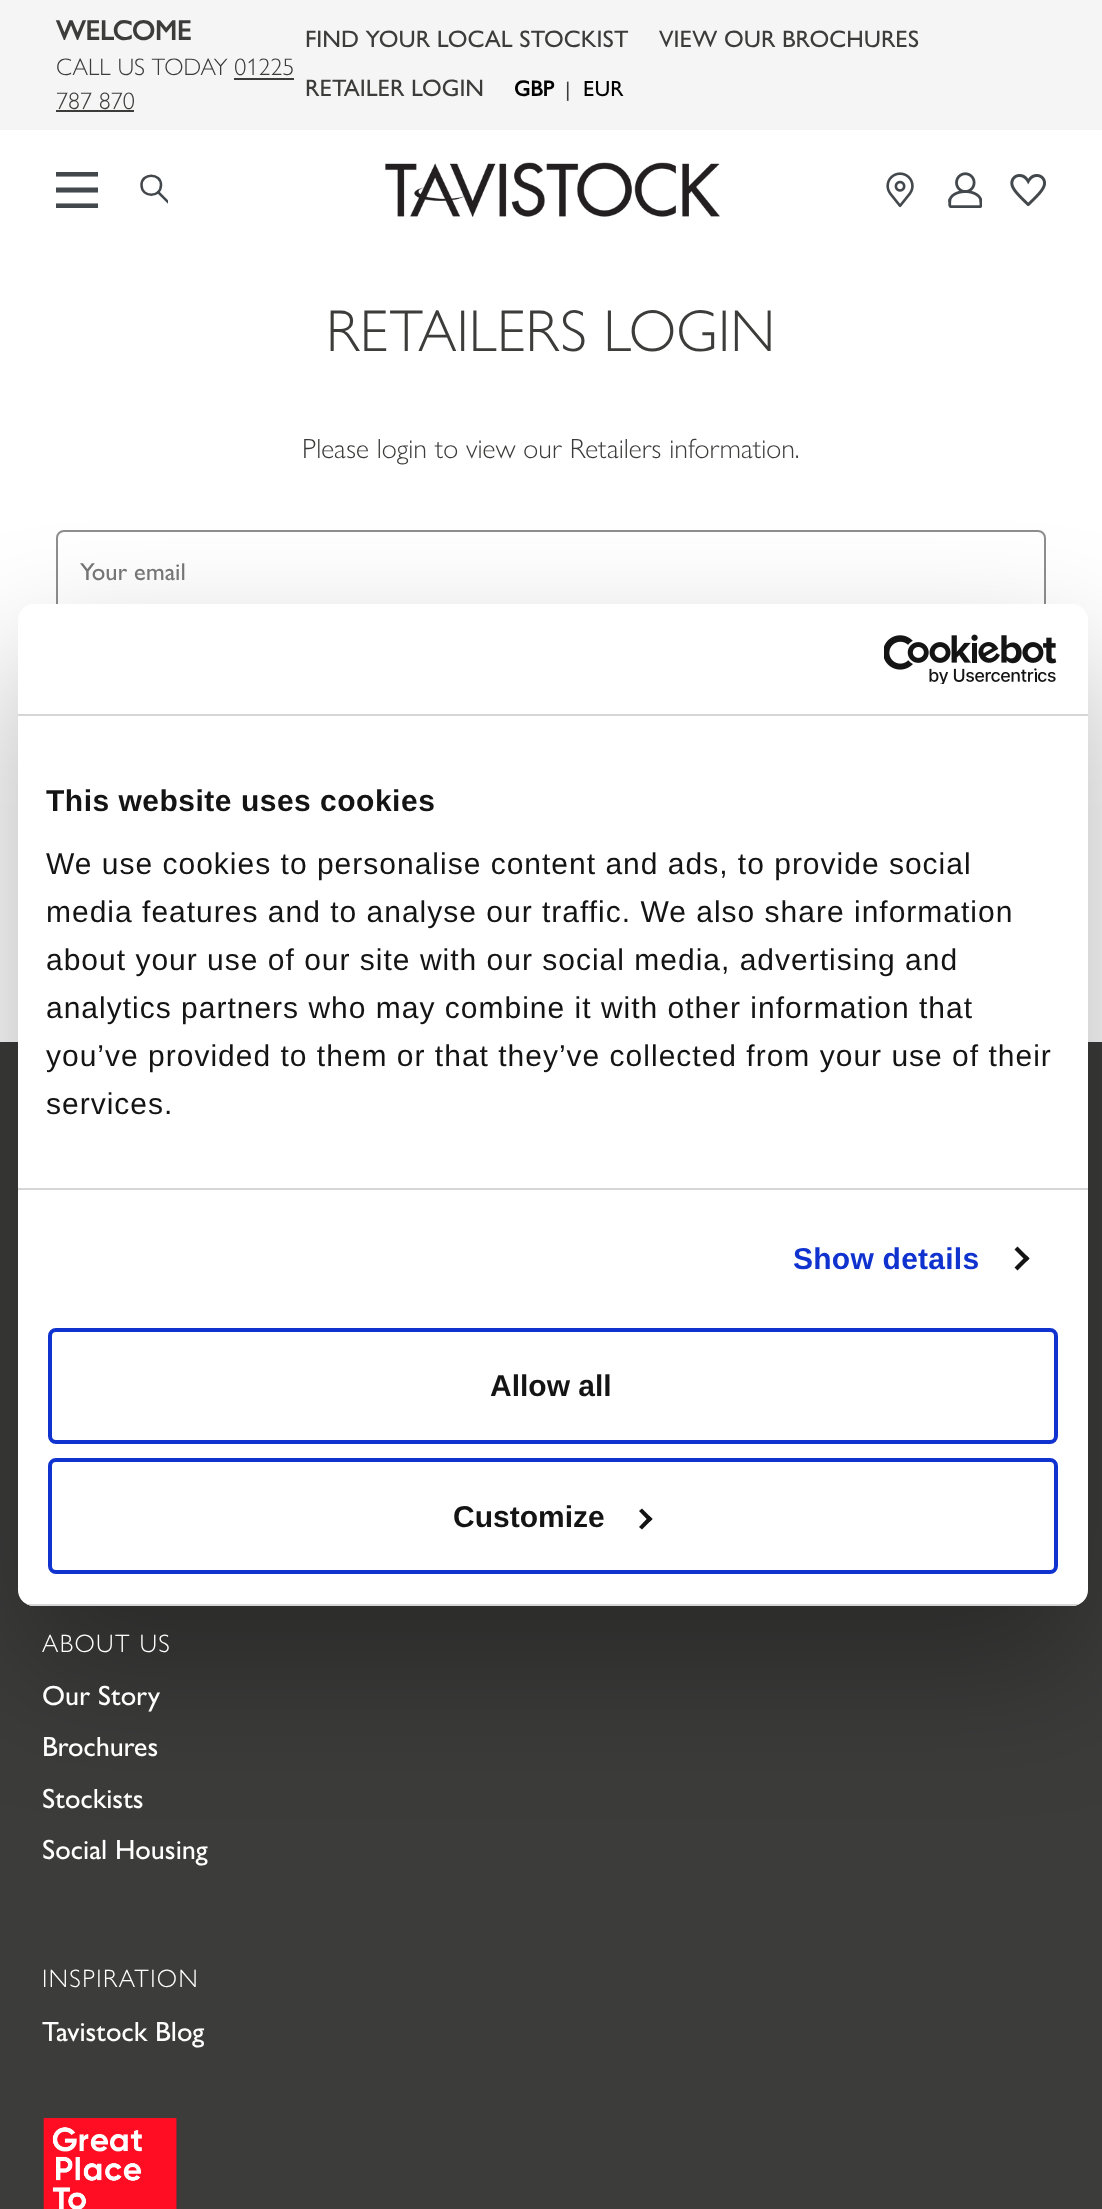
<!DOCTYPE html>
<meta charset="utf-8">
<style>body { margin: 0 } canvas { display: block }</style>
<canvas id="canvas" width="1102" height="2209"></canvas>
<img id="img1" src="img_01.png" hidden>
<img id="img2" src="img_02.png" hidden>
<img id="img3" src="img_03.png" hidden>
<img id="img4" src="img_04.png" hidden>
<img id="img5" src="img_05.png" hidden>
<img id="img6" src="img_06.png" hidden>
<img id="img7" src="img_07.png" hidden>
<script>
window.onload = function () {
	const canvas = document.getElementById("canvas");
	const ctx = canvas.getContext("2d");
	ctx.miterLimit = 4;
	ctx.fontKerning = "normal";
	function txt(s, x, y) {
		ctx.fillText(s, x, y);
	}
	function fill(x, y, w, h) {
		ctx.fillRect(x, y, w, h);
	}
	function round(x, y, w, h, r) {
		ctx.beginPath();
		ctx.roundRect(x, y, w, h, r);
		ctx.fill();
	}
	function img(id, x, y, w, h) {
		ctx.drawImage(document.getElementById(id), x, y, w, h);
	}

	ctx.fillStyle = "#FFFFFF";
	fill(0, 0, 1102, 2209);
	ctx.fillStyle = "#F5F5F5";
	fill(0, 0, 1102, 130);
	ctx.fillStyle = "#3C3C3B";
	fill(234, 78, 60, 2);
	fill(56, 110, 78, 2);
	img("img1", 56, 172, 42, 36);
	ctx.save();
	ctx.beginPath();
	ctx.rect(140, 174, 28, 32);
	ctx.clip();
	ctx.beginPath();
	ctx.moveTo(158, 192);
	ctx.lineTo(169, 203);
	ctx.moveTo(161, 185);
	ctx.bezierCurveTo(161, 198, 141.5, 198, 141.5, 185);
	ctx.bezierCurveTo(141.5, 172.5, 161, 172.5, 161, 185);
	ctx.closePath();
	ctx.strokeStyle = "#43484D";
	ctx.lineWidth = 2.5;
	ctx.lineCap = "round";
	ctx.stroke();
	ctx.restore();
	img("img2", 385, 162, 335, 55);
	img("img3", 886, 172, 28, 36);
	img("img4", 948, 172, 34, 36);
	img("img5", 1010, 174, 36, 32);
	ctx.beginPath();
	ctx.roundRect(57, 531, 988, 80, 7);
	ctx.strokeStyle = "#8E8E8E";
	ctx.lineWidth = 2;
	ctx.stroke();
	fill(0, 1042, 1102, 1167);
	ctx.fillStyle = "rgba(0, 0, 0, 0.3)";
	ctx.filter = "blur(68px)";
	ctx.beginPath();
	ctx.roundRect(18, 668, 1070, 1002, 16);
	ctx.fill();
	ctx.filter = "none";
	ctx.fillStyle = "#FFFFFF";
	round(18, 604, 1070, 1002, 16);
	ctx.fillStyle = "#D6D6D6";
	fill(18, 714, 1070, 2);
	img("img6", 884, 634, 173, 50);
	fill(18, 1188, 1070, 2);
	ctx.fillStyle = "#141414";
	ctx.beginPath();
	ctx.moveTo(1017.5, 1246.5);
	ctx.lineTo(1029.5, 1258.5);
	ctx.lineTo(1026.5, 1261.5);
	ctx.lineTo(1014.5, 1249.5);
	ctx.closePath();
	ctx.fill();
	ctx.beginPath();
	ctx.moveTo(1026.5, 1255.5);
	ctx.lineTo(1029.5, 1258.5);
	ctx.lineTo(1017.5, 1270.5);
	ctx.lineTo(1014.5, 1267.5);
	ctx.closePath();
	ctx.fill();
	ctx.save();
	ctx.beginPath();
	ctx.roundRect(18, 604, 1070, 1002, 16);
	ctx.clip();
	ctx.fillStyle = "#D6D6D6";
	fill(18, 1604, 1070, 2);
	ctx.restore();
	ctx.beginPath();
	ctx.roundRect(50, 1330, 1006, 112, 6);
	ctx.strokeStyle = "#1032CF";
	ctx.lineWidth = 4;
	ctx.stroke();
	ctx.beginPath();
	ctx.roundRect(50, 1460, 1006, 112, 6);
	ctx.stroke();
	ctx.beginPath();
	ctx.moveTo(642, 1508.5);
	ctx.lineTo(652.5, 1519);
	ctx.lineTo(649.5, 1522);
	ctx.lineTo(639, 1511);
	ctx.closePath();
	ctx.fill();
	ctx.beginPath();
	ctx.moveTo(649.5, 1516);
	ctx.lineTo(652.5, 1519);
	ctx.lineTo(642, 1529.5);
	ctx.lineTo(639, 1527);
	ctx.closePath();
	ctx.fill();
	img("img7", 43, 2118, 134, 91);
	ctx.font = "bold 28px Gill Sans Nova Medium";
	ctx.fillStyle = "#3C3C3B";
	txt("WELCOME", 56, 40);
	ctx.font = "300 24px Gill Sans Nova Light";
	txt("CALL US TODAY 01225", 56, 75);
	txt("787 870", 56, 109);
	ctx.font = "500 24px Gill Sans Nova Medium";
	txt("FIND YOUR LOCAL STOCKIST", 305, 47);
	txt("VIEW OUR BROCHURES", 659, 47);
	txt("RETAILER LOGIN", 305, 96);
	ctx.font = "bold 22px Gill Sans Nova Medium";
	ctx.fillStyle = "#000000";
	txt("GBP", 514, 96);
	ctx.letterSpacing = "3px";
	ctx.font = "500 21px Gill Sans Nova Medium";
	ctx.fillStyle = "#3C3C3B";
	txt("|", 565, 96);
	ctx.letterSpacing = "0px";
	ctx.font = "500 22px Gill Sans Nova Medium";
	ctx.fillStyle = "#000000";
	txt("EUR", 583, 96);
	ctx.font = "300 59.25px Gill Sans Nova Light";
	ctx.fillStyle = "#3C3C3B";
	txt("RETAILERS LOGIN", 326, 351);
	ctx.font = "300 28px Gill Sans Nova Light";
	txt("Please login to view our Retailers information.", 302, 458);
	ctx.font = "500 24.5px Gill Sans Nova Medium";
	ctx.fillStyle = "#757575";
	txt("Your email", 80, 580);
	ctx.letterSpacing = "0.5px";
	ctx.font = "bold 30px Liberation Sans";
	ctx.fillStyle = "#141414";
	txt("This website uses cookies", 46, 811);
	ctx.letterSpacing = "1px";
	ctx.font = "30px Liberation Sans";
	txt("We use cookies to personalise content and ads, to provide social", 46, 874);
	txt("media features and to analyse our traffic. We also share information", 46, 922);
	txt("about your use of our site with our social media, advertising and", 46, 970);
	txt("analytics partners who may combine it with other information that", 46, 1018);
	txt("you’ve provided to them or that they’ve collected from your use of their", 46, 1066);
	txt("services.", 46, 1114);
	ctx.letterSpacing = "0.25px";
	ctx.font = "bold 30px Liberation Sans";
	ctx.fillStyle = "#1032CF";
	txt("Show details", 793, 1269);
	ctx.letterSpacing = "0px";
	ctx.fillStyle = "#141414";
	txt("Allow all", 490, 1396);
	txt("Customize", 453, 1527);
	ctx.letterSpacing = "1.4px";
	ctx.font = "300 25.25px Gill Sans Nova Light";
	ctx.fillStyle = "#FFFFFF";
	txt("ABOUT US", 42, 1652);
	ctx.letterSpacing = "0px";
	ctx.font = "500 28px Gill Sans Nova Medium";
	txt("Our Story", 42, 1705);
	txt("Brochures", 42, 1756);
	txt("Stockists", 42, 1808);
	txt("Social Housing", 42, 1859);
	ctx.letterSpacing = "1.4px";
	ctx.font = "300 25.25px Gill Sans Nova Light";
	txt("INSPIRATION", 42, 1987);
	ctx.letterSpacing = "0px";
	ctx.font = "500 28px Gill Sans Nova Medium";
	txt("Tavistock Blog", 42, 2041);
};
</script>
